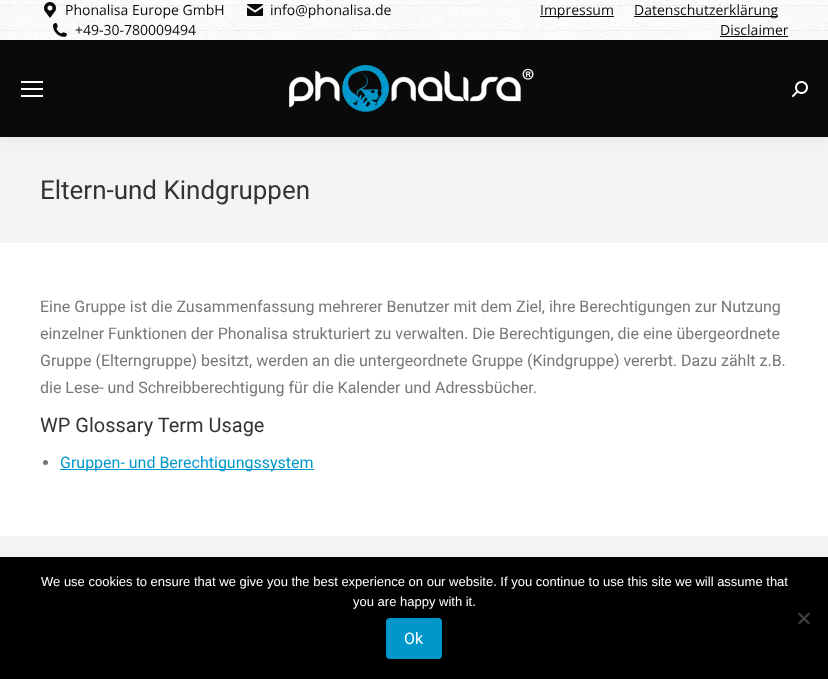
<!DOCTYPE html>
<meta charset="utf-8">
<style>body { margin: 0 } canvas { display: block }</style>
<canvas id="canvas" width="828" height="679"></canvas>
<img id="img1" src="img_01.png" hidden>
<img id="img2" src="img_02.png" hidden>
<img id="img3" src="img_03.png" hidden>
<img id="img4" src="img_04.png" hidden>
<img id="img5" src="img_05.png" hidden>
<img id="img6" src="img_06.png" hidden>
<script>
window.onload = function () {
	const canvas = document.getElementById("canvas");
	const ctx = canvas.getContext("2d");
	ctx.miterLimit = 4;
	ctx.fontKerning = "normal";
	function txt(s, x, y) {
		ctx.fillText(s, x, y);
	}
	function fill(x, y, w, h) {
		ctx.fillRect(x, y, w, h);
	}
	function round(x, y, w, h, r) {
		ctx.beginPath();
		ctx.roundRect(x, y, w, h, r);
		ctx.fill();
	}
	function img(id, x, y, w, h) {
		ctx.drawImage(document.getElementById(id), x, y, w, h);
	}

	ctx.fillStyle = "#FFFFFF";
	fill(0, 0, 828, 679);
	ctx.fillStyle = "#F4F4F4";
	fill(0, 137, 828, 106);
	ctx.fillStyle = "rgba(0, 0, 0, 0.07)";
	ctx.filter = "blur(7.5px)";
	ctx.beginPath();
	ctx.rect(-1, -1, 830, 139);
	ctx.fill();
	ctx.filter = "none";
	ctx.fillStyle = "#0A0A0A";
	fill(0, 40, 828, 97);
	img("img1", 0, 0, 828, 40);
	img("img2", 44, 2, 12, 16);
	img("img3", 247, 4, 16, 12);
	img("img4", 53, 23, 14, 14);
	fill(540, 16, 74, 1);
	fill(634, 16, 144, 1);
	fill(720, 36, 68, 1);
	ctx.fillStyle = "#FFFFFF";
	fill(21, 81, 22, 2);
	fill(21, 88, 22, 2);
	fill(21, 95, 22, 2);
	img("img5", 289, 65, 245, 47);
	img("img6", 792, 81, 16, 16);
	ctx.fillStyle = "#777777";
	ctx.beginPath();
	ctx.arc(45.5, 462.5, 2.5, 0, Math.PI * 2);
	ctx.fill();
	ctx.fillStyle = "#0098CB";
	fill(60, 469, 254, 1);
	ctx.fillStyle = "#F4F4F4";
	fill(0, 536, 828, 21);
	ctx.fillStyle = "#000000";
	fill(0, 557, 828, 122);
	ctx.fillStyle = "#404040";
	ctx.beginPath();
	ctx.moveTo(808.5, 612.5);
	ctx.lineTo(810, 614);
	ctx.lineTo(799.5, 624.5);
	ctx.lineTo(798, 623);
	ctx.closePath();
	ctx.fill();
	ctx.beginPath();
	ctx.moveTo(798, 614);
	ctx.lineTo(799.5, 612.5);
	ctx.lineTo(810, 623);
	ctx.lineTo(808.5, 624.5);
	ctx.closePath();
	ctx.fill();
	ctx.fillStyle = "#0098CB";
	round(386, 618, 56, 41, 4);
	ctx.font = "14px Open Sans";
	ctx.fillStyle = "#0A0A0A";
	txt("Phonalisa Europe GmbH", 65, 15);
	txt("info@phonalisa.de", 270, 15);
	txt("+49-30-780009494", 75, 35);
	txt("Impressum", 540, 15);
	txt("Datenschutzerklärung", 634, 15);
	txt("Disclaimer", 720, 35);
	ctx.font = "26px Roboto";
	ctx.fillStyle = "#333333";
	txt("Eltern-und Kindgruppen", 40, 199);
	ctx.font = "16px Roboto";
	ctx.fillStyle = "#777777";
	txt("Eine Gruppe ist die Zusammenfassung mehrerer Benutzer mit dem Ziel, ihre Berechtigungen zur Nutzung", 40, 312);
	txt("einzelner Funktionen der Phonalisa strukturiert zu verwalten. Die Berechtigungen, die eine übergeordnete", 40, 339);
	txt("Gruppe (Elterngruppe) besitzt, werden an die untergeordnete Gruppe (Kindgruppe) vererbt. Dazu zählt z.B.", 40, 366);
	txt("die Lese- und Schreibberechtigung für die Kalender und Adressbücher.", 40, 393);
	ctx.font = "20px Roboto";
	ctx.fillStyle = "#333333";
	txt("WP Glossary Term Usage", 40, 432);
	ctx.font = "16px Roboto";
	ctx.fillStyle = "#0098CB";
	txt("Gruppen- und Berechtigungssystem", 60, 468);
	ctx.font = "13px Liberation Sans";
	ctx.fillStyle = "#FFFFFF";
	txt("We use cookies to ensure that we give you the best experience on our website. If you continue to use this site we will assume that", 41, 586);
	txt("you are happy with it.", 353, 606);
	ctx.font = "16px Roboto";
	txt("Ok", 404, 644);
};
</script>
